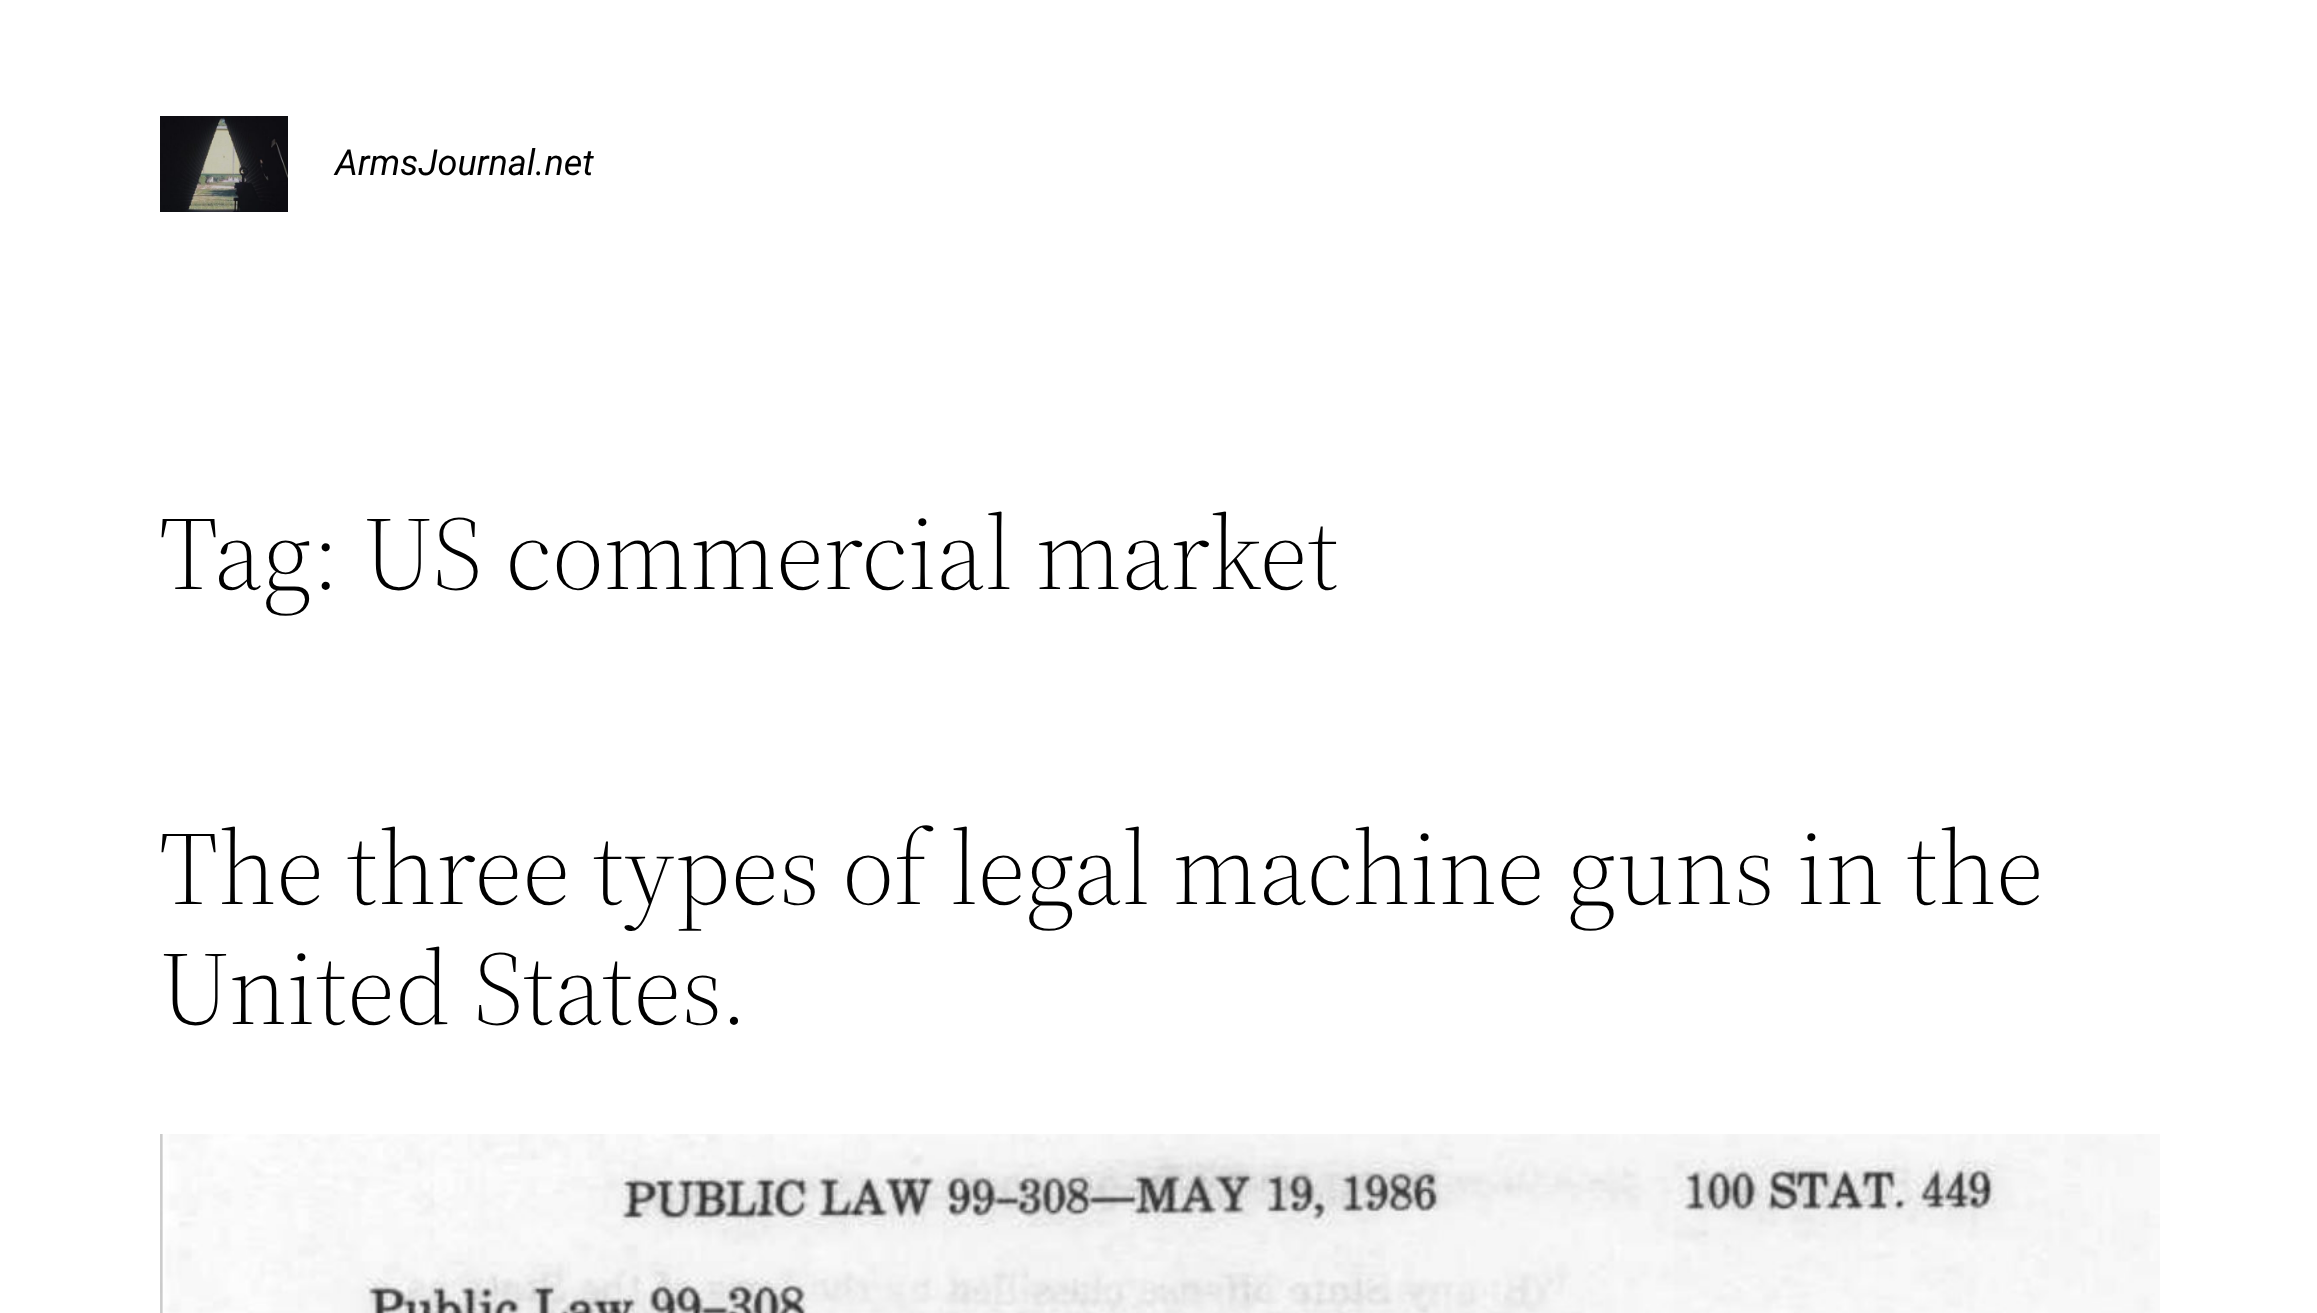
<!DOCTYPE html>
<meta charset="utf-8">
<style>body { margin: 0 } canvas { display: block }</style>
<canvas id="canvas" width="2317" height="1313"></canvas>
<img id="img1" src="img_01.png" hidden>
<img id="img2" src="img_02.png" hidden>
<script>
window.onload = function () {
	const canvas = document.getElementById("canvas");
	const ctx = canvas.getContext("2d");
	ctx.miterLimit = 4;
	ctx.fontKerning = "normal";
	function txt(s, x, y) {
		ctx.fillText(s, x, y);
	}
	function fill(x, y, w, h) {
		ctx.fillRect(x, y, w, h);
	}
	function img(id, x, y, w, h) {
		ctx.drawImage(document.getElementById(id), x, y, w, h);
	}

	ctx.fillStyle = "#FFFFFF";
	fill(0, 0, 2317, 1313);
	img("img1", 160, 116, 128, 96);
	img("img2", 160, 1134, 2000, 179);
	ctx.font = "italic 36px Roboto";
	ctx.fillStyle = "#000000";
	txt("ArmsJournal.net", 335, 175);
	ctx.font = "300 104px 'Source Serif 4'";
	txt("Tag: US commercial market", 159, 589);
	txt("The three types of legal machine guns in the", 159, 904);
	txt("United States.", 159, 1024);
};
</script>
